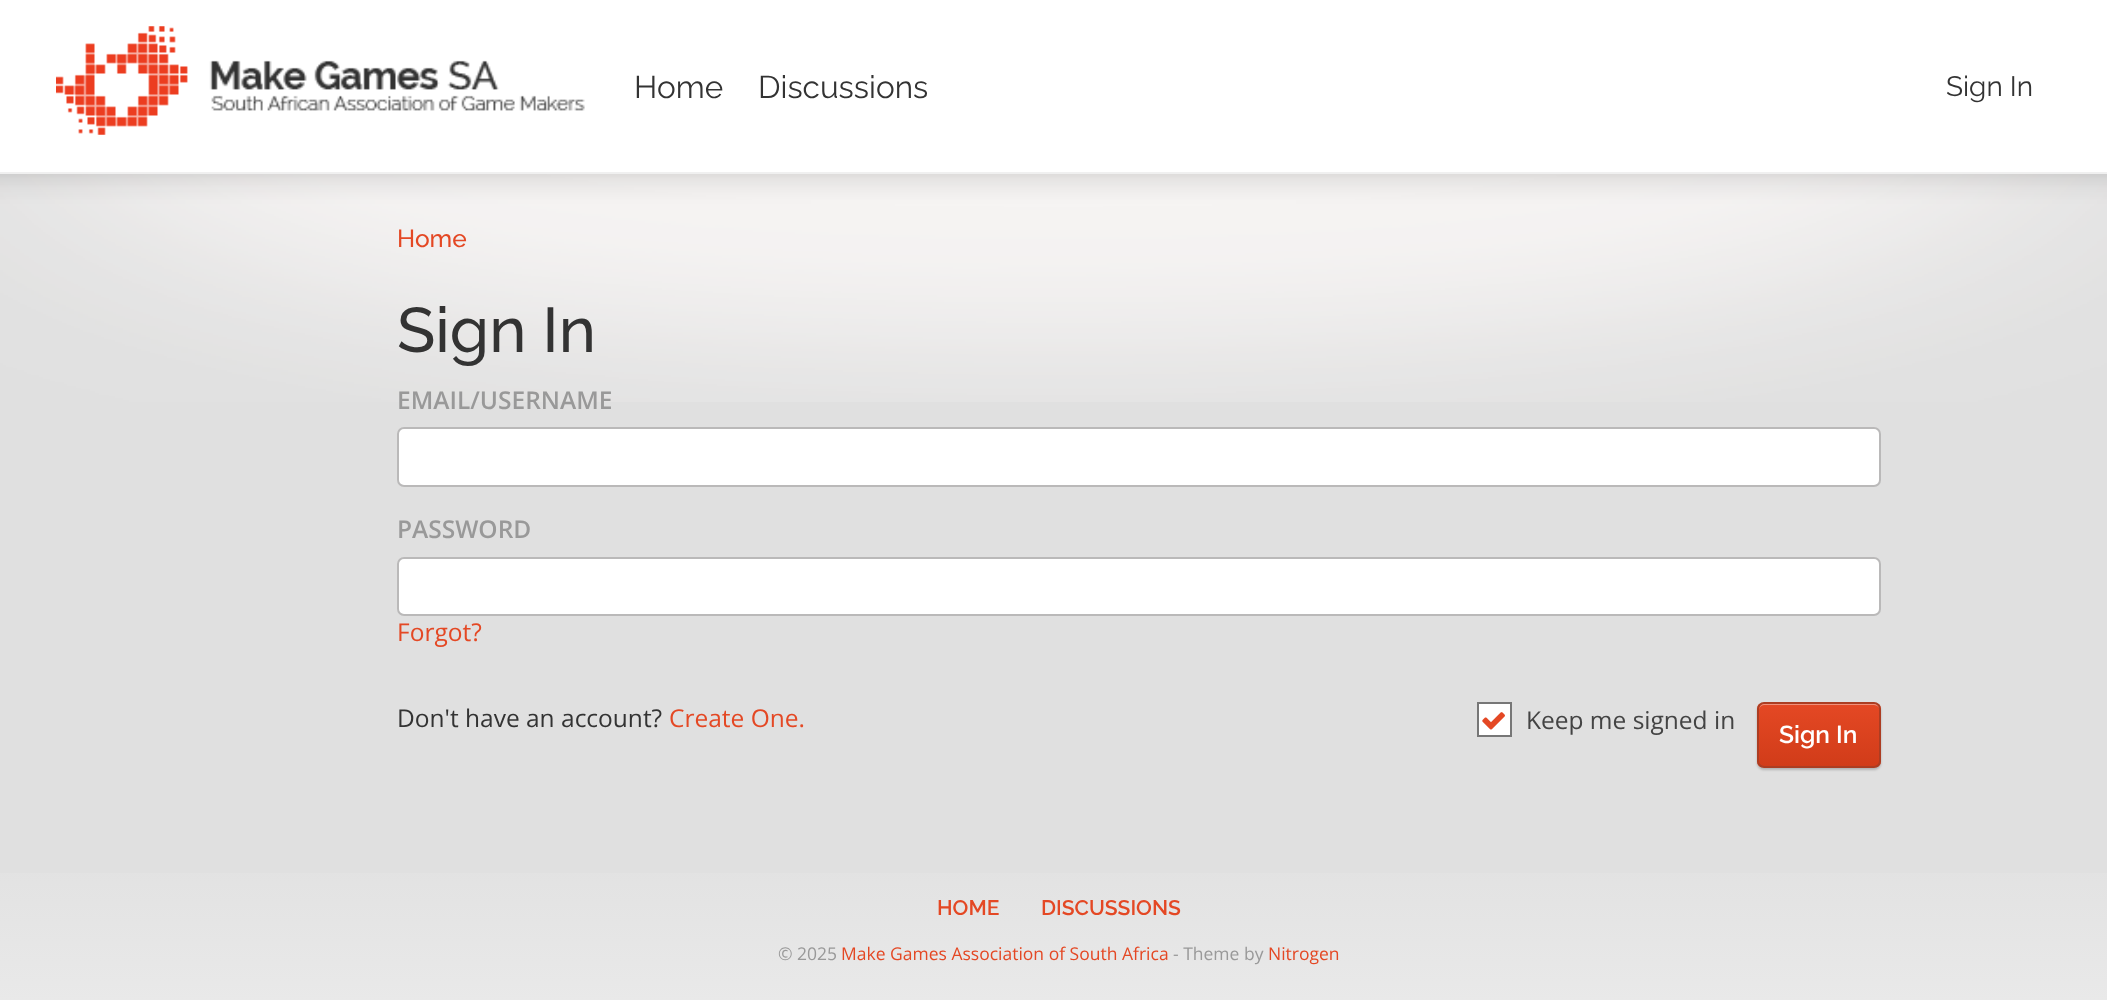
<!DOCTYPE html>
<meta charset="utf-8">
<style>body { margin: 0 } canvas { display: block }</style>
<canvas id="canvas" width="2107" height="1000"></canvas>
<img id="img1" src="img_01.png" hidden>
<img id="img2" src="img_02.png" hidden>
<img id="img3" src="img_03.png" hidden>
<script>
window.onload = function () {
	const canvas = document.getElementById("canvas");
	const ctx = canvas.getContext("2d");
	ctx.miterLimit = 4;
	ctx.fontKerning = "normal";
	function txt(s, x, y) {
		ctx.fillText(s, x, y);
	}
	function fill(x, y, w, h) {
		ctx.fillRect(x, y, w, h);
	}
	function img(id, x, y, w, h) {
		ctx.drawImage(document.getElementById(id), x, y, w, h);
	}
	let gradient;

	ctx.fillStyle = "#E0E0E0";
	fill(0, 0, 2107, 1000);
	ctx.fillStyle = "#FFFFFF";
	fill(0, 0, 2107, 172);
	ctx.fillStyle = "#F0F0F0";
	fill(0, 172, 2107, 2);
	img("img1", 56, 26, 529, 109);
	img("img2", 0, 174, 2107, 228);
	ctx.fillStyle = "#FFFFFF";
	ctx.beginPath();
	ctx.roundRect(398, 428, 1482, 58, 6);
	ctx.fill();
	ctx.strokeStyle = "#BAB9B9";
	ctx.lineWidth = 2;
	ctx.stroke();
	ctx.beginPath();
	ctx.roundRect(398, 558, 1482, 57, 6);
	ctx.fill();
	ctx.stroke();
	ctx.beginPath();
	ctx.rect(1478, 703, 33, 33);
	ctx.fill();
	ctx.strokeStyle = "#777777";
	ctx.stroke();
	img("img3", 1482, 712, 23, 18);
	ctx.fillStyle = "rgba(0, 0, 0, 0.2)";
	ctx.filter = "blur(1px)";
	ctx.beginPath();
	ctx.roundRect(1757, 704, 124, 66, 7);
	ctx.fill();
	ctx.filter = "none";
	ctx.save();
	ctx.beginPath();
	ctx.roundRect(1757, 702, 124, 66, 7);
	ctx.clip();
	gradient = ctx.createLinearGradient(1819, 704, 1819, 767);
	gradient.addColorStop(0, "#E44824");
	gradient.addColorStop(1, "#D13C19");
	ctx.fillStyle = gradient;
	fill(1757, 704, 124, 63);
	ctx.restore();
	ctx.fillStyle = "rgba(255, 255, 255, 0.4)";
	ctx.beginPath();
	ctx.moveTo(1764, 705);
	ctx.lineTo(1874, 705);
	ctx.bezierCurveTo(1877, 705, 1880, 708, 1880, 710);
	ctx.bezierCurveTo(1880, 699, 1861, 704, 1856, 704);
	ctx.lineTo(1782, 704);
	ctx.bezierCurveTo(1778, 704, 1759, 699, 1759, 710);
	ctx.bezierCurveTo(1759, 708, 1761, 705, 1764, 705);
	ctx.closePath();
	ctx.fill();
	ctx.beginPath();
	ctx.roundRect(1758, 703, 122, 64, 6);
	ctx.strokeStyle = "#AC3D22";
	ctx.stroke();
	gradient = ctx.createLinearGradient(1054, 824, 1054, 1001);
	gradient.addColorStop(0, "#E0E0E0");
	gradient.addColorStop(1, "#E9E9E9");
	ctx.fillStyle = gradient;
	fill(0, 873, 2107, 127);
	ctx.font = "31.5px Raleway";
	ctx.fillStyle = "#333333";
	txt("Home", 634, 98);
	txt("Discussions", 758, 98);
	ctx.font = "28px Raleway";
	txt("Sign In", 1946, 96);
	ctx.font = "500 24.5px Raleway";
	ctx.fillStyle = "#E44824";
	txt("Home", 397, 247);
	ctx.font = "500 63px Raleway";
	ctx.fillStyle = "#333333";
	txt("Sign In", 397, 352);
	ctx.font = "600 24.5px Open Sans";
	ctx.fillStyle = "#999999";
	txt("EMAIL/USERNAME", 397, 409);
	txt("PASSWORD", 397, 538);
	ctx.font = "24.5px Open Sans";
	ctx.fillStyle = "#E44824";
	txt("Forgot?", 397, 641);
	ctx.fillStyle = "#333333";
	txt("Don't have an account?", 397, 727);
	ctx.fillStyle = "#E44824";
	txt("Create One.", 669, 727);
	ctx.fillStyle = "#444444";
	txt("Keep me signed in", 1526, 729);
	ctx.font = "600 24.5px Raleway";
	ctx.fillStyle = "#FFFFFF";
	txt("Sign In", 1779, 743);
	ctx.font = "600 21px Raleway";
	ctx.fillStyle = "#E44824";
	txt("HOME", 937, 915);
	txt("DISCUSSIONS", 1041, 915);
	ctx.font = "17.5px Open Sans";
	ctx.fillStyle = "#999999";
	txt("© 2025", 778, 960);
	ctx.fillStyle = "#E44824";
	txt("Make Games Association of South Africa", 841, 960);
	ctx.fillStyle = "#999999";
	txt("- Theme by", 1173, 960);
	ctx.fillStyle = "#E44824";
	txt("Nitrogen", 1268, 960);
};
</script>
